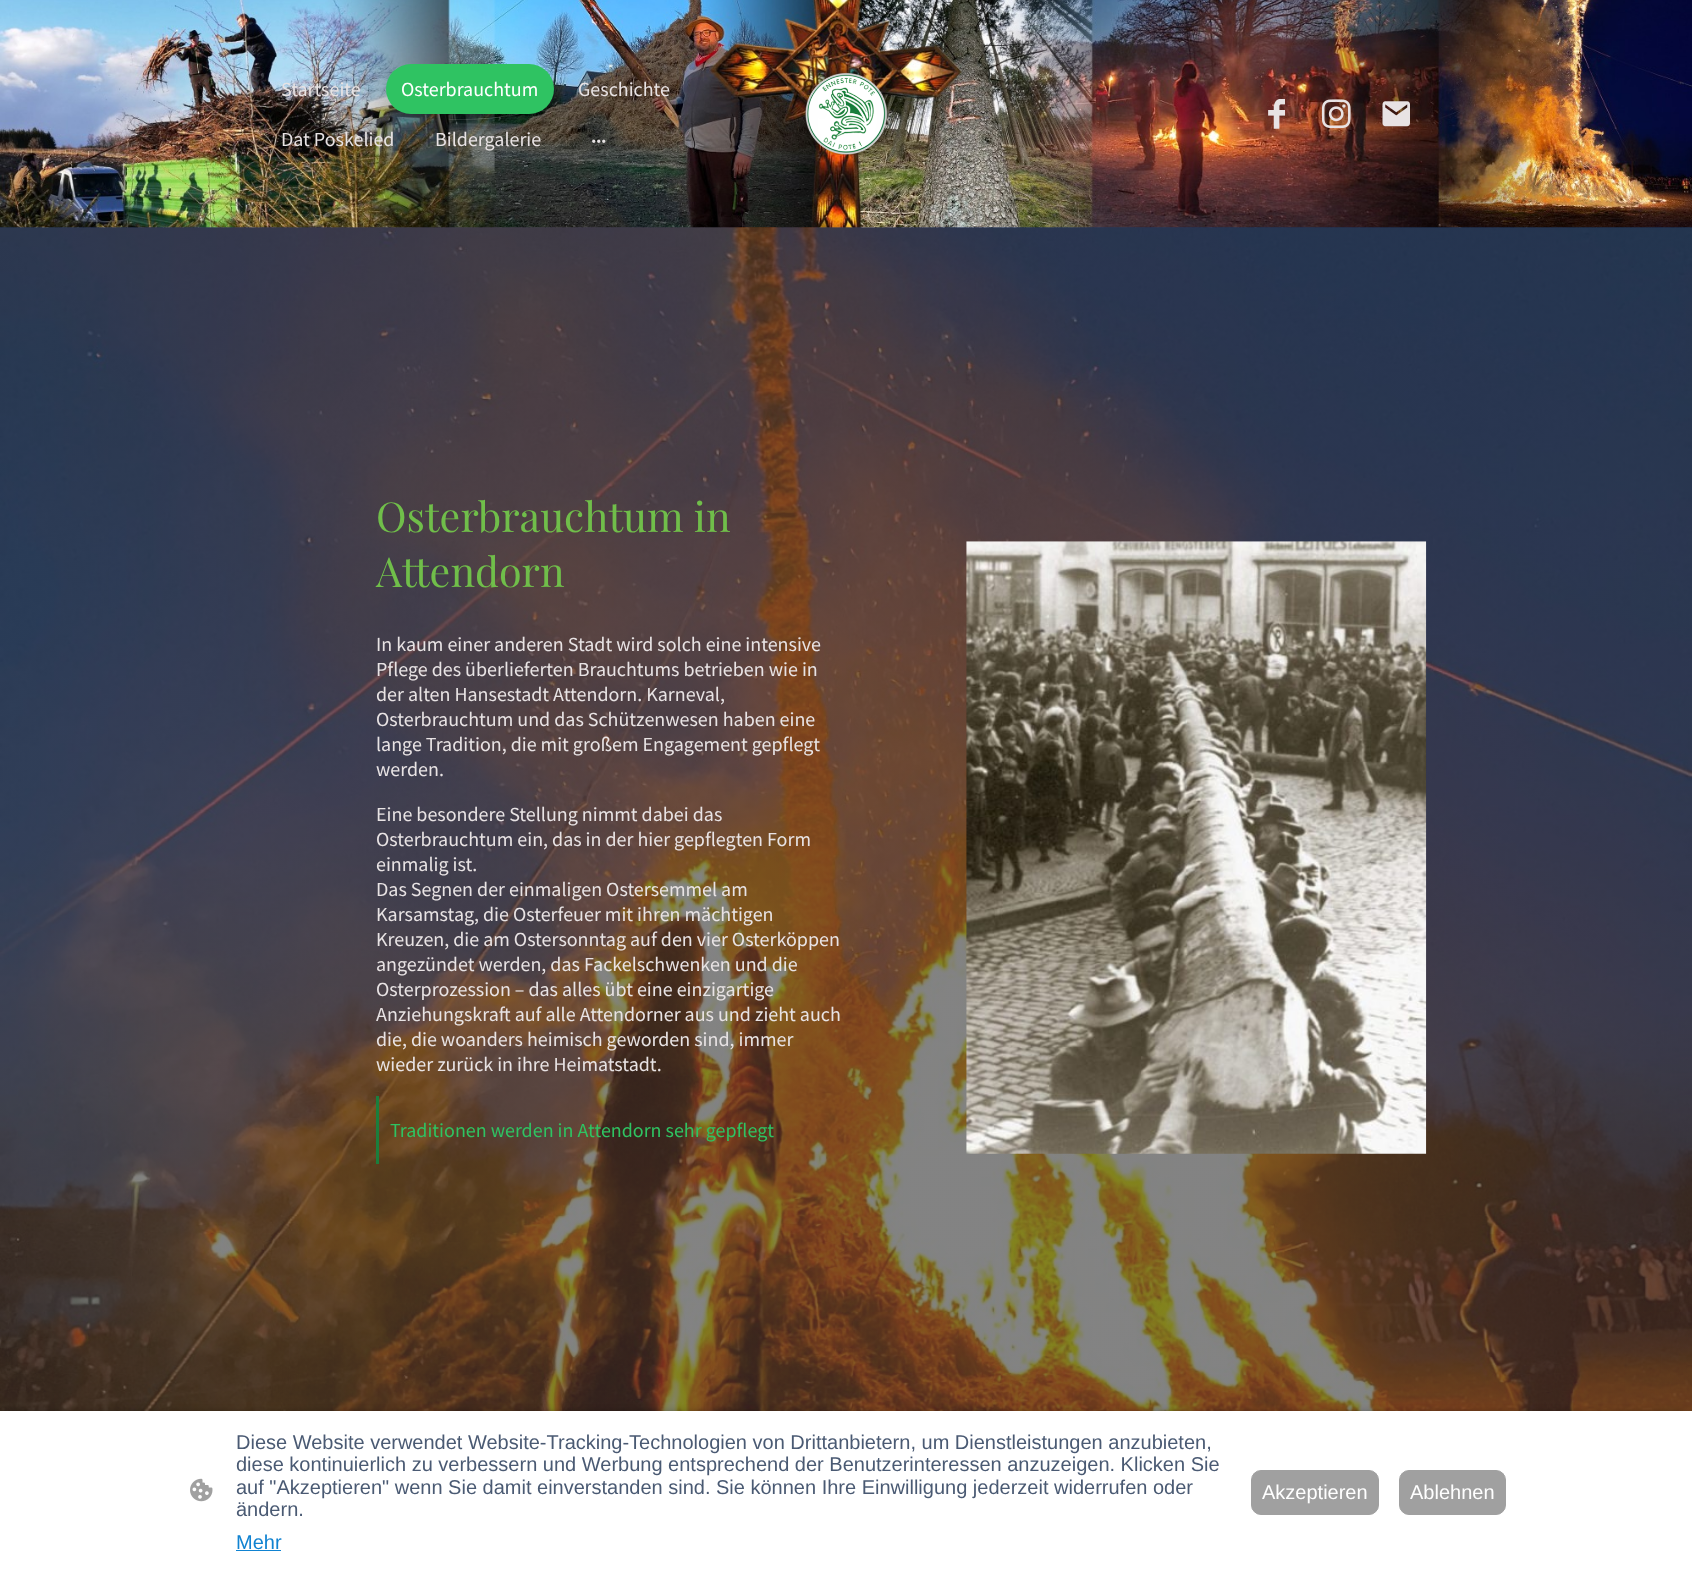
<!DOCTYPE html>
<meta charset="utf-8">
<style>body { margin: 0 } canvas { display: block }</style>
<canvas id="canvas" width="1692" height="1573"></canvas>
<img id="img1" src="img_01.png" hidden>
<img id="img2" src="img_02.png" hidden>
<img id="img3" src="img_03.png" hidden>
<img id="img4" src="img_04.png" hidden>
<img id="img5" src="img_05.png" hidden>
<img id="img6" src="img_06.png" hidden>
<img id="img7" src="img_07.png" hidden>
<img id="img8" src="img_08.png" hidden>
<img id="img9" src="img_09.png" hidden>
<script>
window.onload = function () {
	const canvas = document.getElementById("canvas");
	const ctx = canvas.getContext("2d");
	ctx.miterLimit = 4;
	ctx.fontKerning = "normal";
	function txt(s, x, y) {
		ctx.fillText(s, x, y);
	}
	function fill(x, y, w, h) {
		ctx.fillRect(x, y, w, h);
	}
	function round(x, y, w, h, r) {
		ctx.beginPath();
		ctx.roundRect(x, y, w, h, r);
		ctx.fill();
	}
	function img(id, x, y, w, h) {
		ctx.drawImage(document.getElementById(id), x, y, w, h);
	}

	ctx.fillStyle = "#FFFFFF";
	fill(0, 0, 1692, 1573);
	img("img1", 0, 0, 1692, 228);
	ctx.fillStyle = "#2FC362";
	round(386, 64, 168, 50, 25);
	img("img2", 592, 139, 14, 4);
	img("img3", 805, 72, 83, 83);
	img("img4", 1268, 99, 17, 30);
	img("img5", 1321, 99, 30, 30);
	img("img6", 1382, 101, 28, 26);
	img("img7", 0, 227, 1692, 1184);
	ctx.fillStyle = "#1B7E3D";
	fill(376, 1096, 3, 68);
	img("img8", 966, 541, 461, 613);
	ctx.fillStyle = "rgba(0, 0, 0, 0.63)";
	ctx.filter = "blur(5px)";
	ctx.beginPath();
	ctx.rect(8, 1415, 1677, 148);
	ctx.fill();
	ctx.filter = "none";
	ctx.fillStyle = "#FFFFFF";
	fill(0, 1411, 1692, 162);
	img("img9", 190, 1478, 23, 24);
	ctx.fillStyle = "#1183D1";
	fill(236, 1550, 45, 1);
	ctx.fillStyle = "#A0A0A0";
	ctx.beginPath();
	ctx.roundRect(1251.5, 1470.5, 127, 44, 9.5);
	ctx.fill();
	ctx.strokeStyle = "#A0A0A0";
	ctx.stroke();
	ctx.beginPath();
	ctx.roundRect(1399.5, 1470.5, 106, 44, 9.5);
	ctx.fill();
	ctx.stroke();
	ctx.font = "20px Source Sans Pro";
	ctx.fillStyle = "#E8E3E4";
	txt("Startseite", 281, 96);
	ctx.fillStyle = "#FFFFFF";
	txt("Osterbrauchtum", 401, 96);
	ctx.fillStyle = "#E8E3E4";
	txt("Geschichte", 578, 96);
	txt("Dat Poskelied", 281, 146);
	txt("Bildergalerie", 435, 146);
	ctx.font = "41.25px Playfair Display";
	ctx.fillStyle = "#70BE4A";
	txt("Osterbrauchtum in", 376, 532);
	txt("Attendorn", 376, 587);
	ctx.font = "20px Source Sans Pro";
	ctx.fillStyle = "#E8E3E4";
	txt("In kaum einer anderen Stadt wird solch eine intensive", 376, 651);
	txt("Pflege des überlieferten Brauchtums betrieben wie in", 376, 676);
	txt("der alten Hansestadt Attendorn. Karneval,", 376, 701);
	txt("Osterbrauchtum und das Schützenwesen haben eine", 376, 726);
	txt("lange Tradition, die mit großem Engagement gepflegt", 376, 751);
	txt("werden.", 376, 776);
	txt("Eine besondere Stellung nimmt dabei das", 376, 821);
	txt("Osterbrauchtum ein, das in der hier gepflegten Form", 376, 846);
	txt("einmalig ist.", 376, 871);
	txt("Das Segnen der einmaligen Ostersemmel am", 376, 896);
	txt("Karsamstag, die Osterfeuer mit ihren mächtigen", 376, 921);
	txt("Kreuzen, die am Ostersonntag auf den vier Osterköppen", 376, 946);
	txt("angezündet werden, das Fackelschwenken und die", 376, 971);
	txt("Osterprozession – das alles übt eine einzigartige", 376, 996);
	txt("Anziehungskraft auf alle Attendorner aus und zieht auch", 376, 1021);
	txt("die, die woanders heimisch geworden sind, immer", 376, 1046);
	txt("wieder zurück in ihre Heimatstadt.", 376, 1071);
	ctx.fillStyle = "#2FC362";
	txt("Traditionen werden in Attendorn sehr gepflegt", 390, 1137);
	ctx.font = "20px Liberation Sans";
	ctx.fillStyle = "#4A5A73";
	txt("Diese Website verwendet Website-Tracking-Technologien von Drittanbietern, um Dienstleistungen anzubieten,", 236, 1449);
	txt("diese kontinuierlich zu verbessern und Werbung entsprechend der Benutzerinteressen anzuzeigen. Klicken Sie", 236, 1471);
	txt("auf \"Akzeptieren\" wenn Sie damit einverstanden sind. Sie können Ihre Einwilligung jederzeit widerrufen oder", 236, 1494);
	txt("ändern.", 236, 1516);
	ctx.fillStyle = "#1183D1";
	txt("Mehr", 236, 1549);
	ctx.fillStyle = "#FFFFFF";
	txt("Akzeptieren", 1262, 1499);
	txt("Ablehnen", 1410, 1499);
};
</script>
